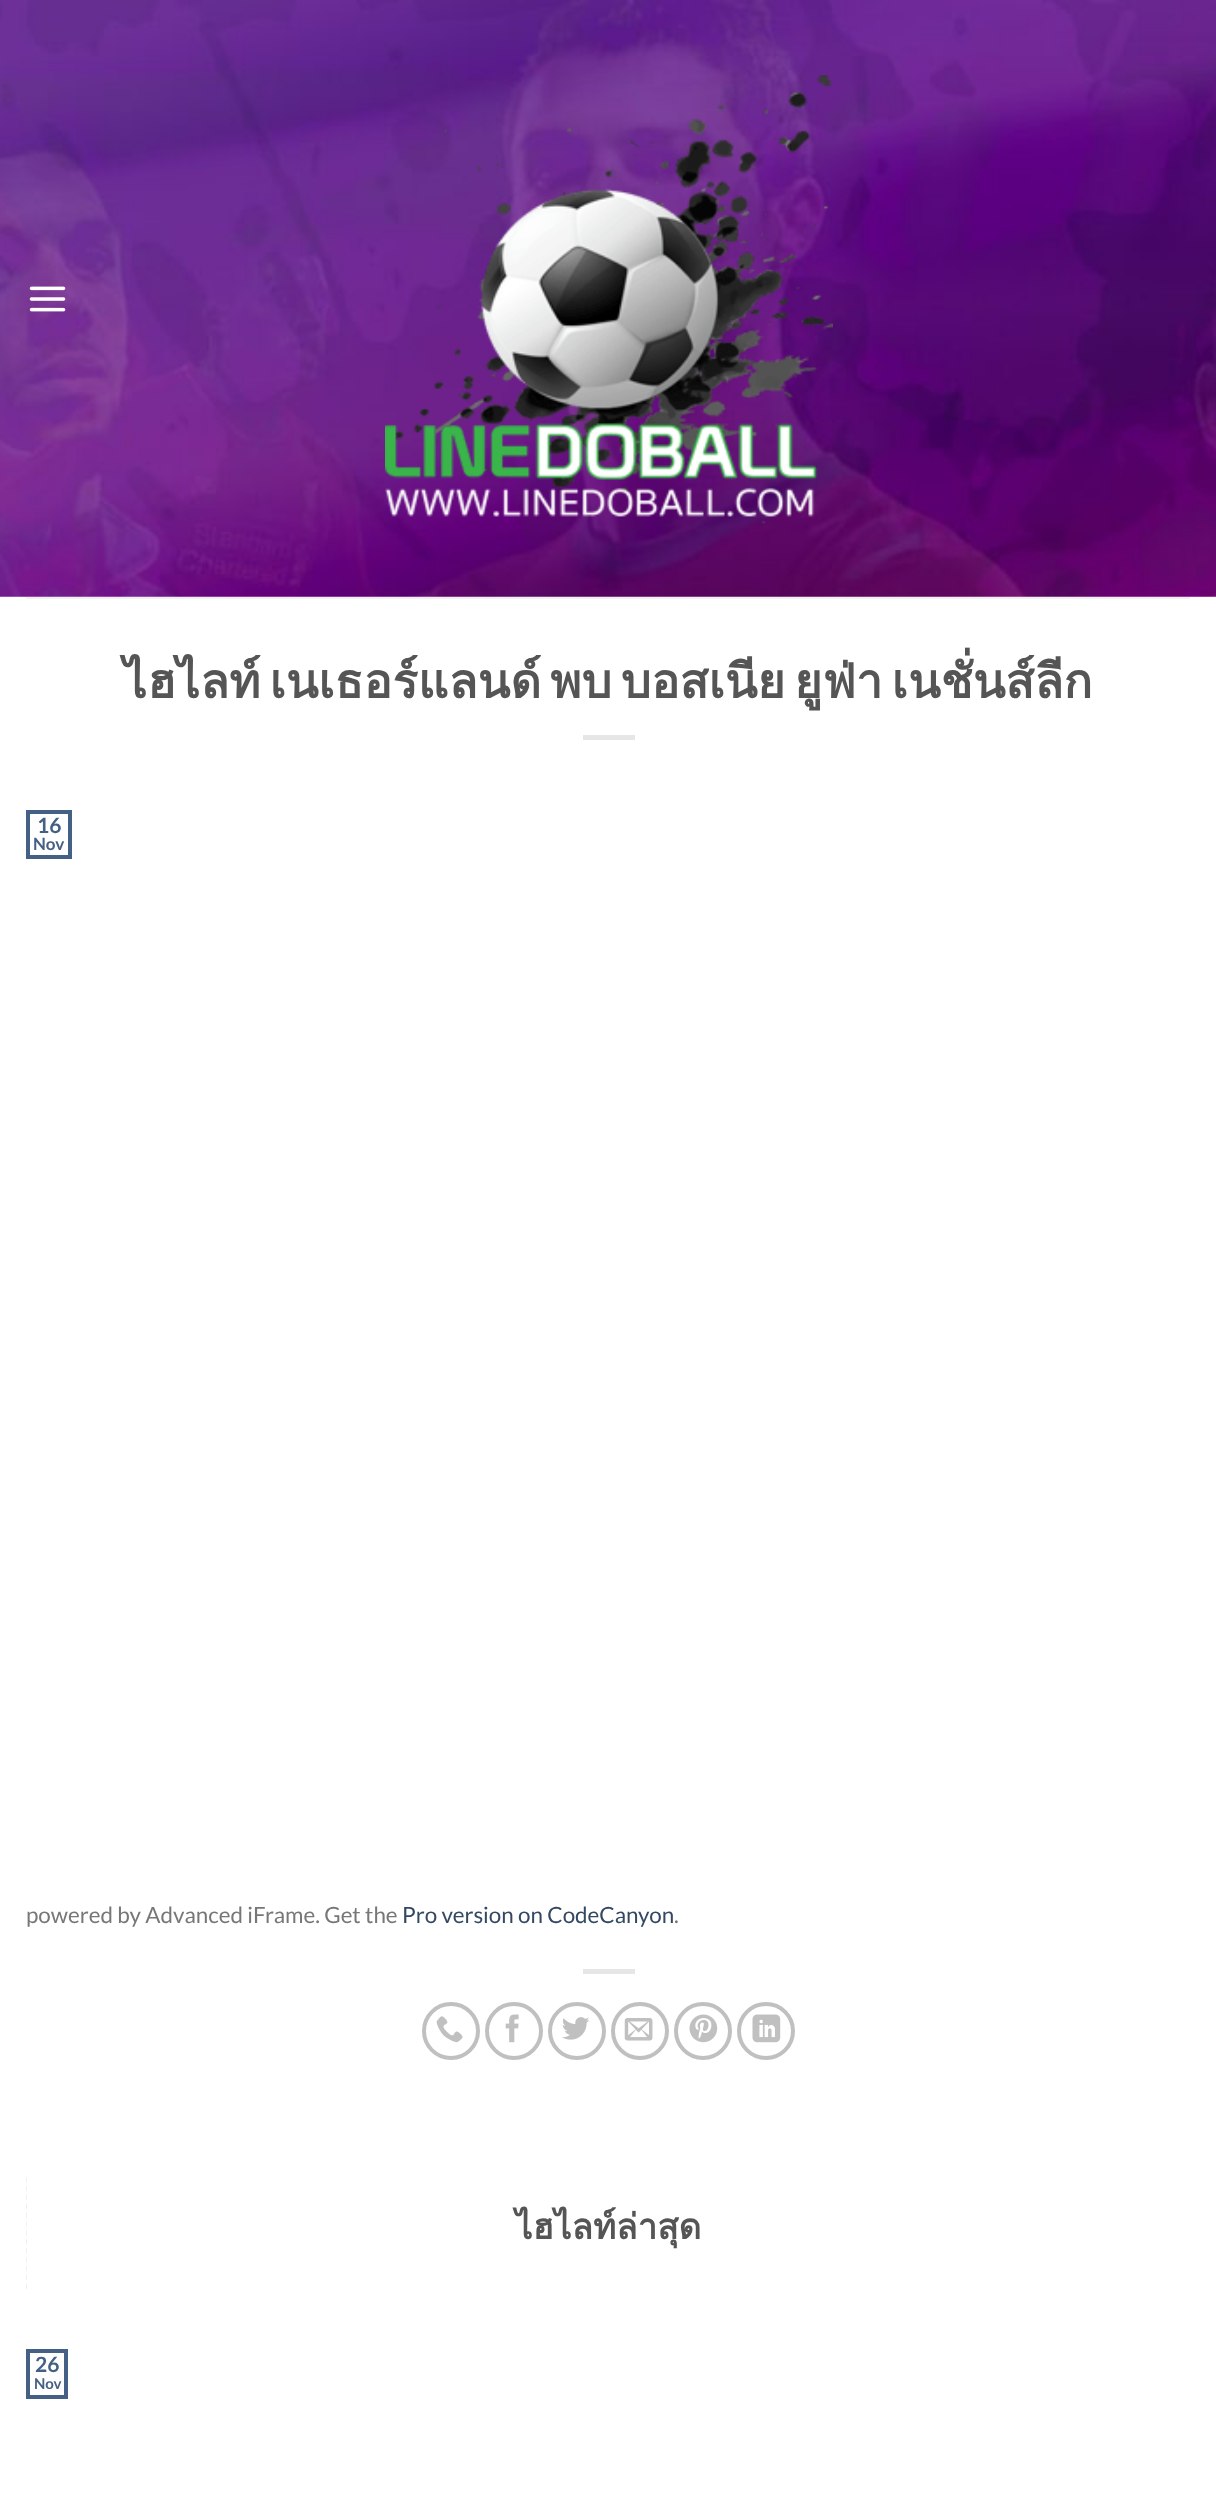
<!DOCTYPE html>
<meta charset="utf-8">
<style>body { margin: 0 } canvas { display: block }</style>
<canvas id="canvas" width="1216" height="2493"></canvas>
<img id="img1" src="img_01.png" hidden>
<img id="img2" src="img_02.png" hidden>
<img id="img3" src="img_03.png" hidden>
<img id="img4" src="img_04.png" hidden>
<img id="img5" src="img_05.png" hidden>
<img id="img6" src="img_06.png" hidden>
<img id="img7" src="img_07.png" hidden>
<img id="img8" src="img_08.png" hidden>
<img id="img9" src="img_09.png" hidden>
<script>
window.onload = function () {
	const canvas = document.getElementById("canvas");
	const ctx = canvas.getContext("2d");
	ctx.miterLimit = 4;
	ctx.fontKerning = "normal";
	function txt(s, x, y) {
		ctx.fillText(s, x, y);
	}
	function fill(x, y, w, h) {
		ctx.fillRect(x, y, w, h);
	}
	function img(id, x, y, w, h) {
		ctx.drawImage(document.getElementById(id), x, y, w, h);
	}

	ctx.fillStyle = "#FFFFFF";
	fill(0, 0, 1216, 2493);
	img("img1", 0, 0, 1216, 597);
	img("img2", 29, 286, 37, 26);
	img("img3", 385, 75, 448, 449);
	ctx.fillStyle = "#F1F1F1";
	fill(26, 597, 1164, 2);
	ctx.fillStyle = "#E6E6E6";
	fill(583, 735, 52, 5);
	ctx.strokeStyle = "#446084";
	ctx.lineWidth = 4;
	ctx.strokeRect(28, 812, 42, 45);
	fill(583, 1969, 52, 5);
	ctx.beginPath();
	ctx.arc(451, 2031, 27, 0, Math.PI * 2);
	ctx.strokeStyle = "#C0C0C0";
	ctx.stroke();
	img("img4", 436, 2016, 27, 27);
	ctx.beginPath();
	ctx.arc(514, 2031, 27, 0, Math.PI * 2);
	ctx.stroke();
	img("img5", 505, 2014, 14, 29);
	ctx.beginPath();
	ctx.arc(577, 2031, 27, 0, Math.PI * 2);
	ctx.stroke();
	img("img6", 562, 2017, 27, 23);
	ctx.beginPath();
	ctx.arc(640, 2031, 27, 0, Math.PI * 2);
	ctx.stroke();
	img("img7", 624, 2018, 29, 23);
	ctx.beginPath();
	ctx.arc(703, 2031, 27, 0, Math.PI * 2);
	ctx.stroke();
	img("img8", 689, 2014, 29, 29);
	ctx.beginPath();
	ctx.arc(766, 2031, 27, 0, Math.PI * 2);
	ctx.stroke();
	img("img9", 752, 2014, 29, 29);
	ctx.save();
	ctx.beginPath();
	ctx.rect(26, 2177, 1164, 112);
	ctx.clip();
	ctx.beginPath();
	ctx.moveTo(25.5, 2177);
	ctx.lineTo(25.5, 2289);
	ctx.strokeStyle = "#DDDDDD";
	ctx.lineWidth = 1.8;
	ctx.setLineDash([5.25, 3.64]);
	ctx.stroke();
	ctx.restore();
	ctx.strokeStyle = "#446084";
	ctx.strokeRect(28, 2351, 38, 46);
	ctx.wordSpacing = "-7px";
	ctx.font = "bold 47.6px Loma";
	ctx.fillStyle = "#555555";
	txt("ไฮไลท์ เนเธอร์แลนด์ พบ บอสเนีย ยูฟ่า เนชั่นส์ลีก", 123, 698);
	ctx.wordSpacing = "0px";
	ctx.font = "bold 21px Lato";
	ctx.fillStyle = "#446084";
	txt("16", 37, 833);
	ctx.font = "bold 17px Lato";
	txt("Nov", 33, 850);
	ctx.font = "22.4px Lato";
	ctx.fillStyle = "#777777";
	txt("powered by Advanced iFrame. Get the", 26, 1923);
	ctx.fillStyle = "#334862";
	txt("Pro version on CodeCanyon", 402, 1923);
	ctx.fillStyle = "#777777";
	txt(".", 674, 1923);
	ctx.font = "bold 35px Loma";
	ctx.fillStyle = "#555555";
	txt("ไฮไลท์ล่าสุด", 515, 2239);
	ctx.font = "bold 21px Lato";
	ctx.fillStyle = "#446084";
	txt("26", 35, 2372);
	ctx.font = "bold 15px Lato";
	txt("Nov", 34, 2389);
};
</script>
